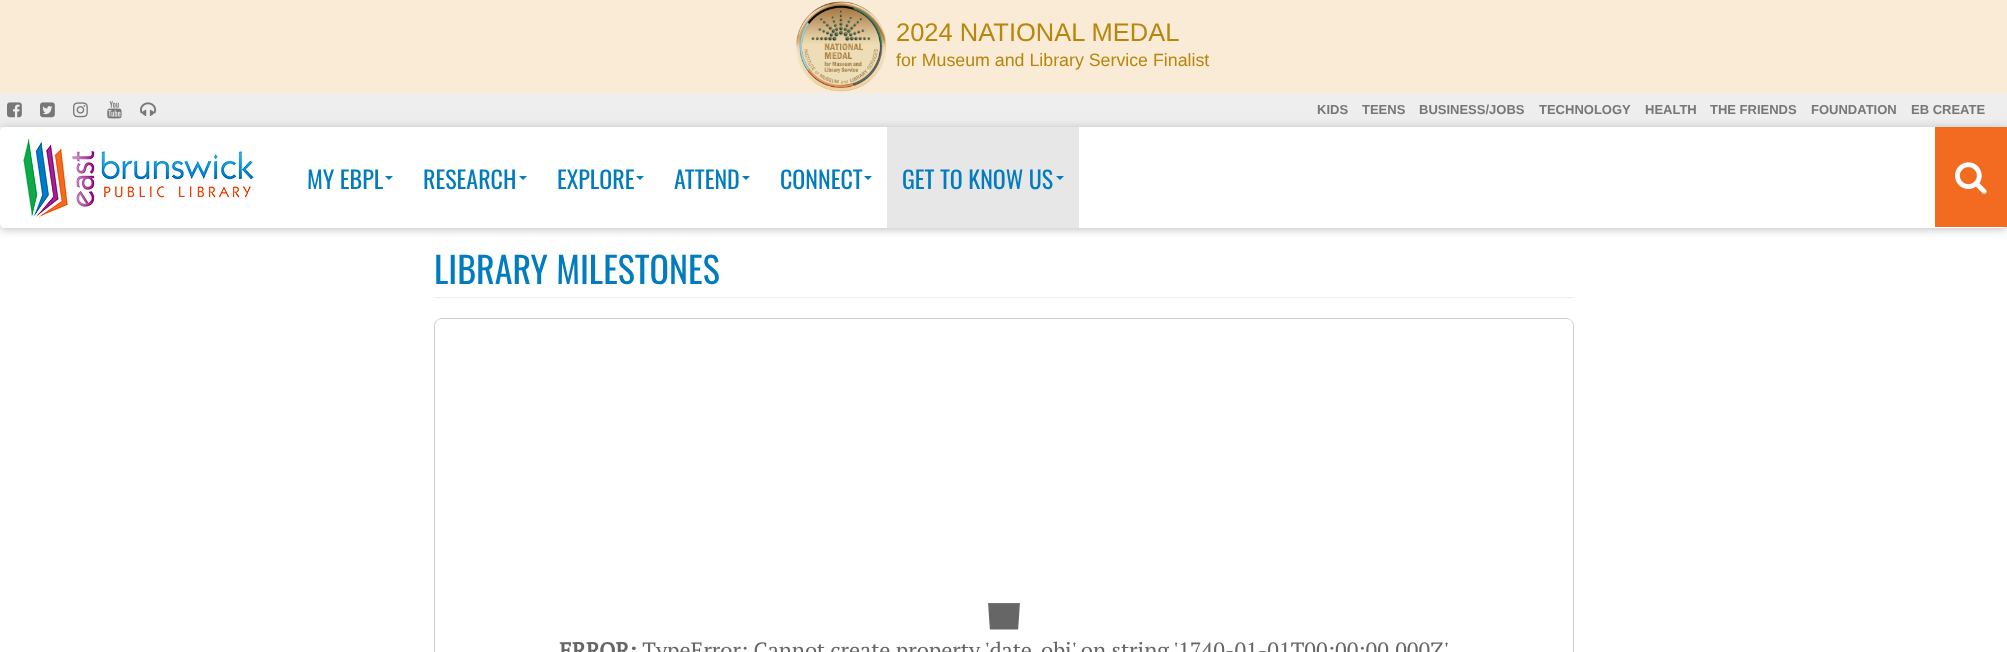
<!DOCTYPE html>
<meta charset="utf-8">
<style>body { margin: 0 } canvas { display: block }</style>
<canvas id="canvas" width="2007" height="652"></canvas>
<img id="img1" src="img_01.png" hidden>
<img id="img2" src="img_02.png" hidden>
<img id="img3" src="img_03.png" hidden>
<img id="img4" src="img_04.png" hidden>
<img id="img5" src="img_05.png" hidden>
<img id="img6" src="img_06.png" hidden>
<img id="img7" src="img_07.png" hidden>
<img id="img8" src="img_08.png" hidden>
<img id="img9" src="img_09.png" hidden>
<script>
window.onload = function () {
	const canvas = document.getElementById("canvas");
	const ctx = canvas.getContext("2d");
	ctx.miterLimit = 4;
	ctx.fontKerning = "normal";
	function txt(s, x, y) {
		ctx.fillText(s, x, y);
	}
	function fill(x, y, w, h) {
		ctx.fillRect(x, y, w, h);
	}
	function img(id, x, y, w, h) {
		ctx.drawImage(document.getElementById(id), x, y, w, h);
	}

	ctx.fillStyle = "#FFFFFF";
	fill(0, 0, 2007, 652);
	ctx.fillStyle = "#EEEEEE";
	fill(0, 93, 2007, 34);
	ctx.fillStyle = "#FAEBD7";
	fill(0, 0, 2007, 93);
	img("img1", 796, 1, 90, 91);
	img("img2", 7, 102, 15, 16);
	img("img3", 40, 102, 15, 16);
	img("img4", 73, 102, 15, 16);
	img("img5", 107, 101, 15, 18);
	img("img6", 140, 102, 17, 14);
	ctx.save();
	ctx.beginPath();
	ctx.moveTo(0, 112);
	ctx.lineTo(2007, 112);
	ctx.lineTo(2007, 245);
	ctx.lineTo(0, 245);
	ctx.closePath();
	ctx.moveTo(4, 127);
	ctx.lineTo(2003, 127);
	ctx.bezierCurveTo(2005, 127, 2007, 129, 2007, 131);
	ctx.lineTo(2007, 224);
	ctx.bezierCurveTo(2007, 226, 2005, 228, 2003, 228);
	ctx.lineTo(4, 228);
	ctx.bezierCurveTo(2, 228, 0, 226, 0, 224);
	ctx.lineTo(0, 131);
	ctx.bezierCurveTo(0, 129, 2, 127, 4, 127);
	ctx.closePath();
	ctx.clip("evenodd");
	ctx.fillStyle = "#BBBBBB";
	ctx.filter = "blur(5px)";
	ctx.beginPath();
	ctx.roundRect(0, 128, 2007, 101, 4);
	ctx.fill();
	ctx.filter = "none";
	ctx.restore();
	img("img7", 23, 137, 231, 81);
	ctx.fillStyle = "#027CBF";
	ctx.beginPath();
	ctx.moveTo(385, 176);
	ctx.lineTo(393, 176);
	ctx.lineTo(389, 180);
	ctx.closePath();
	ctx.fill();
	ctx.beginPath();
	ctx.moveTo(519, 176);
	ctx.lineTo(527, 176);
	ctx.lineTo(523, 180);
	ctx.closePath();
	ctx.fill();
	ctx.beginPath();
	ctx.moveTo(636, 176);
	ctx.lineTo(644, 176);
	ctx.lineTo(640, 180);
	ctx.closePath();
	ctx.fill();
	ctx.beginPath();
	ctx.moveTo(742, 176);
	ctx.lineTo(750, 176);
	ctx.lineTo(746, 180);
	ctx.closePath();
	ctx.fill();
	ctx.beginPath();
	ctx.moveTo(864, 176);
	ctx.lineTo(872, 176);
	ctx.lineTo(868, 180);
	ctx.closePath();
	ctx.fill();
	ctx.fillStyle = "#E7E7E7";
	fill(887, 127, 192, 101);
	ctx.fillStyle = "#027CBF";
	ctx.beginPath();
	ctx.moveTo(1056, 176);
	ctx.lineTo(1064, 176);
	ctx.lineTo(1060, 180);
	ctx.closePath();
	ctx.fill();
	ctx.fillStyle = "#F36B21";
	fill(1935, 127, 72, 100);
	img("img8", 1955, 162, 32, 32);
	ctx.fillStyle = "#EEEEEE";
	fill(434, 297, 1140, 1);
	img("img9", 434, 318, 1140, 334);
	ctx.font = "25.5px Liberation Sans";
	ctx.fillStyle = "#B8860B";
	txt("2024 NATIONAL MEDAL", 896, 41);
	ctx.font = "17.8px Liberation Sans";
	txt("for Museum and Library Service Finalist", 896, 66);
	ctx.font = "bold 13px Liberation Sans";
	ctx.fillStyle = "#777777";
	txt("KIDS", 1317, 114);
	txt("TEENS", 1362, 114);
	txt("BUSINESS/JOBS", 1419, 114);
	txt("TECHNOLOGY", 1539, 114);
	txt("HEALTH", 1645, 114);
	txt("THE FRIENDS", 1710, 114);
	txt("FOUNDATION", 1811, 114);
	txt("EB CREATE", 1911, 114);
	ctx.font = "24px Oswald";
	ctx.fillStyle = "#027CBF";
	txt("MY EBPL", 307, 189);
	txt("RESEARCH", 423, 189);
	txt("EXPLORE", 557, 189);
	txt("ATTEND", 674, 189);
	txt("CONNECT", 780, 189);
	txt("GET TO KNOW US", 902, 189);
	ctx.font = "36px Oswald";
	txt("LIBRARY MILESTONES", 434, 284);
};
</script>
